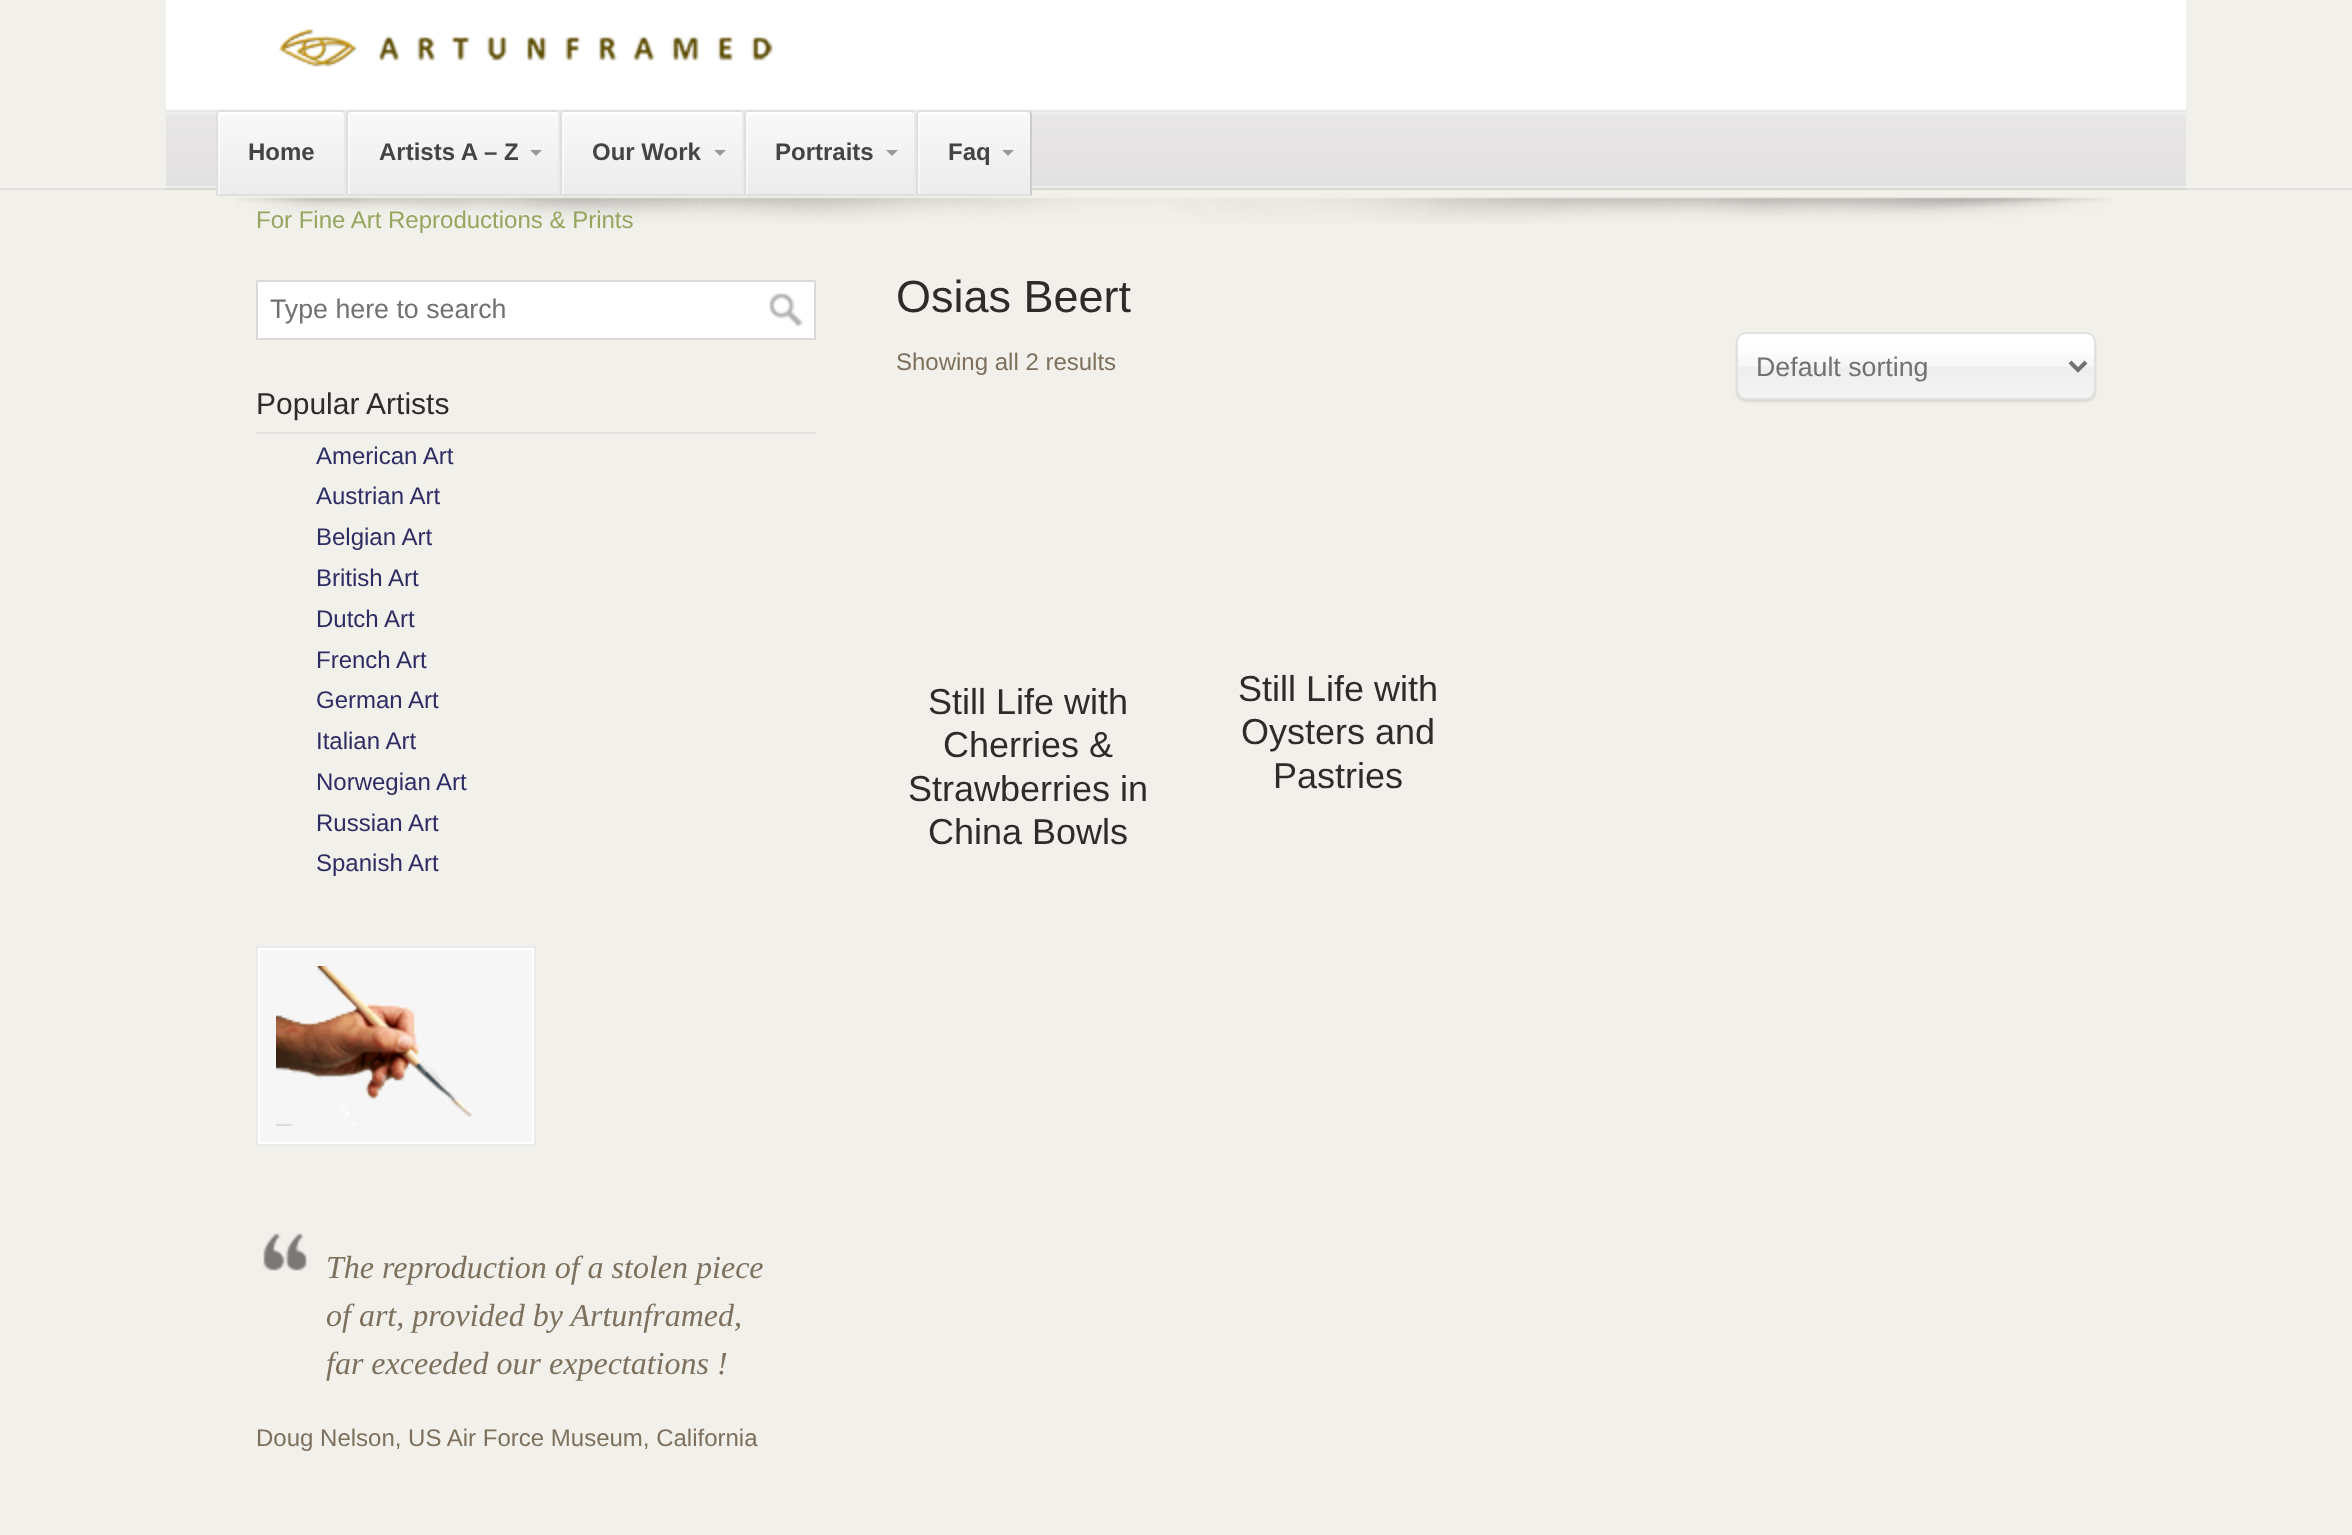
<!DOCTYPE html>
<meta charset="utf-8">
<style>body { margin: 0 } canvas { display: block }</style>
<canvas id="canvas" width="2352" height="1535"></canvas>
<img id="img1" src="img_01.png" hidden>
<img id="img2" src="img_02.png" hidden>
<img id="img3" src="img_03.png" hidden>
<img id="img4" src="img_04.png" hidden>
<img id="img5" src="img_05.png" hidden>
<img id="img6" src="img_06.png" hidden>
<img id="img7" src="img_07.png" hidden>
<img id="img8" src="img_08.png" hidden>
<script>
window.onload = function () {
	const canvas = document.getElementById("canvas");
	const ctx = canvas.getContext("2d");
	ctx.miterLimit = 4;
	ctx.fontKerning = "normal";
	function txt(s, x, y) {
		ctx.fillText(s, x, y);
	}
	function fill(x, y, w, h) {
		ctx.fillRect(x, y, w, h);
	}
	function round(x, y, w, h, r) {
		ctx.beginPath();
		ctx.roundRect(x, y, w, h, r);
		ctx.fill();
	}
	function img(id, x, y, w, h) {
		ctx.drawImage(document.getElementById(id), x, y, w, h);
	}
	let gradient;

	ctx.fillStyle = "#F2F0EA";
	fill(0, 0, 2352, 1535);
	img("img1", 166, 0, 2020, 190);
	img("img2", 0, 186, 2352, 4);
	ctx.fillStyle = "#F1F1F1";
	ctx.beginPath();
	ctx.roundRect(216, 110, 130, 86, [4, 4, 0, 0]);
	ctx.fill();
	gradient = ctx.createLinearGradient(281, 112, 281, 194);
	gradient.addColorStop(0, "#F9F9F9");
	gradient.addColorStop(1, "#ECECEC");
	ctx.fillStyle = gradient;
	fill(216, 112, 130, 82);
	ctx.fillStyle = "rgba(255, 255, 255, 0.5)";
	ctx.beginPath();
	ctx.moveTo(220, 112);
	ctx.lineTo(218, 113);
	ctx.lineTo(218, 194);
	ctx.lineTo(220, 194);
	ctx.lineTo(220, 113);
	ctx.lineTo(222, 112);
	ctx.closePath();
	ctx.fill();
	ctx.fillStyle = "rgba(255, 255, 255, 0.9)";
	ctx.beginPath();
	ctx.moveTo(220, 114);
	ctx.lineTo(342, 114);
	ctx.lineTo(344, 115);
	ctx.lineTo(344, 116);
	ctx.lineTo(344, 114);
	ctx.bezierCurveTo(344, 113, 343, 112, 342, 112);
	ctx.lineTo(220, 112);
	ctx.bezierCurveTo(219, 112, 218, 113, 218, 114);
	ctx.lineTo(218, 115);
	ctx.closePath();
	ctx.fill();
	ctx.fillStyle = "#DFDFDF";
	ctx.beginPath();
	ctx.moveTo(220, 110);
	ctx.lineTo(217, 111);
	ctx.lineTo(219, 113);
	ctx.lineTo(220, 112);
	ctx.lineTo(342, 112);
	ctx.lineTo(343, 113);
	ctx.lineTo(345, 111);
	ctx.lineTo(342, 110);
	ctx.closePath();
	ctx.fill();
	ctx.fillStyle = "#E9E9E9";
	ctx.beginPath();
	ctx.moveTo(346, 196);
	ctx.lineTo(346, 114);
	ctx.lineTo(345, 111);
	ctx.lineTo(343, 113);
	ctx.lineTo(344, 114);
	ctx.lineTo(344, 194);
	ctx.closePath();
	ctx.fill();
	ctx.fillStyle = "#DFDFDF";
	ctx.beginPath();
	ctx.moveTo(346, 196);
	ctx.lineTo(344, 194);
	ctx.lineTo(218, 194);
	ctx.lineTo(216, 196);
	ctx.closePath();
	ctx.fill();
	ctx.beginPath();
	ctx.moveTo(216, 196);
	ctx.lineTo(218, 194);
	ctx.lineTo(218, 113);
	ctx.lineTo(219, 113);
	ctx.lineTo(217, 111);
	ctx.lineTo(216, 114);
	ctx.closePath();
	ctx.fill();
	ctx.fillStyle = "#F1F1F1";
	ctx.beginPath();
	ctx.roundRect(346, 110, 214, 86, [4, 4, 0, 0]);
	ctx.fill();
	gradient = ctx.createLinearGradient(453, 112, 453, 194);
	gradient.addColorStop(0, "#F9F9F9");
	gradient.addColorStop(1, "#ECECEC");
	ctx.fillStyle = gradient;
	fill(346, 112, 214, 82);
	ctx.fillStyle = "rgba(255, 255, 255, 0.5)";
	ctx.beginPath();
	ctx.moveTo(350, 112);
	ctx.lineTo(348, 113);
	ctx.lineTo(348, 194);
	ctx.lineTo(350, 194);
	ctx.lineTo(350, 113);
	ctx.lineTo(352, 112);
	ctx.closePath();
	ctx.fill();
	ctx.fillStyle = "rgba(255, 255, 255, 0.9)";
	ctx.beginPath();
	ctx.moveTo(350, 114);
	ctx.lineTo(556, 114);
	ctx.lineTo(558, 115);
	ctx.lineTo(558, 116);
	ctx.lineTo(558, 114);
	ctx.bezierCurveTo(558, 113, 557, 112, 556, 112);
	ctx.lineTo(350, 112);
	ctx.bezierCurveTo(349, 112, 348, 113, 348, 114);
	ctx.lineTo(348, 115);
	ctx.closePath();
	ctx.fill();
	ctx.fillStyle = "#DFDFDF";
	ctx.beginPath();
	ctx.moveTo(350, 110);
	ctx.lineTo(347, 111);
	ctx.lineTo(349, 113);
	ctx.lineTo(350, 112);
	ctx.lineTo(556, 112);
	ctx.lineTo(557, 113);
	ctx.lineTo(559, 111);
	ctx.lineTo(556, 110);
	ctx.closePath();
	ctx.fill();
	ctx.fillStyle = "#E9E9E9";
	ctx.beginPath();
	ctx.moveTo(560, 196);
	ctx.lineTo(560, 114);
	ctx.lineTo(559, 111);
	ctx.lineTo(557, 113);
	ctx.lineTo(558, 114);
	ctx.lineTo(558, 194);
	ctx.closePath();
	ctx.fill();
	ctx.fillStyle = "#DFDFDF";
	ctx.beginPath();
	ctx.moveTo(560, 196);
	ctx.lineTo(558, 194);
	ctx.lineTo(348, 194);
	ctx.lineTo(346, 196);
	ctx.closePath();
	ctx.fill();
	ctx.beginPath();
	ctx.moveTo(346, 196);
	ctx.lineTo(348, 194);
	ctx.lineTo(348, 113);
	ctx.lineTo(349, 113);
	ctx.lineTo(347, 111);
	ctx.lineTo(346, 114);
	ctx.closePath();
	ctx.fill();
	ctx.fillStyle = "#999999";
	ctx.beginPath();
	ctx.moveTo(530, 150);
	ctx.lineTo(542, 150);
	ctx.lineTo(536, 156);
	ctx.closePath();
	ctx.fill();
	ctx.fillStyle = "#F1F1F1";
	ctx.beginPath();
	ctx.roundRect(560, 110, 184, 86, [4, 4, 0, 0]);
	ctx.fill();
	gradient = ctx.createLinearGradient(652, 112, 652, 194);
	gradient.addColorStop(0, "#F9F9F9");
	gradient.addColorStop(1, "#ECECEC");
	ctx.fillStyle = gradient;
	fill(560, 112, 184, 82);
	ctx.fillStyle = "rgba(255, 255, 255, 0.5)";
	ctx.beginPath();
	ctx.moveTo(564, 112);
	ctx.lineTo(562, 113);
	ctx.lineTo(562, 194);
	ctx.lineTo(564, 194);
	ctx.lineTo(564, 113);
	ctx.lineTo(566, 112);
	ctx.closePath();
	ctx.fill();
	ctx.fillStyle = "rgba(255, 255, 255, 0.9)";
	ctx.beginPath();
	ctx.moveTo(564, 114);
	ctx.lineTo(740, 114);
	ctx.bezierCurveTo(741, 114, 742, 115, 742, 116);
	ctx.lineTo(742, 114);
	ctx.bezierCurveTo(742, 113, 741, 112, 740, 112);
	ctx.lineTo(564, 112);
	ctx.bezierCurveTo(563, 112, 562, 113, 562, 114);
	ctx.lineTo(562, 115);
	ctx.closePath();
	ctx.fill();
	ctx.fillStyle = "#DFDFDF";
	ctx.beginPath();
	ctx.moveTo(564, 110);
	ctx.lineTo(561, 111);
	ctx.lineTo(563, 113);
	ctx.lineTo(564, 112);
	ctx.lineTo(740, 112);
	ctx.lineTo(741, 113);
	ctx.lineTo(743, 111);
	ctx.lineTo(740, 110);
	ctx.closePath();
	ctx.fill();
	ctx.fillStyle = "#E9E9E9";
	ctx.beginPath();
	ctx.moveTo(744, 196);
	ctx.lineTo(744, 114);
	ctx.lineTo(743, 111);
	ctx.lineTo(741, 113);
	ctx.lineTo(742, 114);
	ctx.lineTo(742, 194);
	ctx.closePath();
	ctx.fill();
	ctx.fillStyle = "#DFDFDF";
	ctx.beginPath();
	ctx.moveTo(744, 196);
	ctx.lineTo(742, 194);
	ctx.lineTo(562, 194);
	ctx.lineTo(560, 196);
	ctx.closePath();
	ctx.fill();
	ctx.beginPath();
	ctx.moveTo(560, 196);
	ctx.lineTo(562, 194);
	ctx.lineTo(562, 113);
	ctx.lineTo(563, 113);
	ctx.lineTo(561, 111);
	ctx.lineTo(560, 114);
	ctx.closePath();
	ctx.fill();
	ctx.fillStyle = "#999999";
	ctx.beginPath();
	ctx.moveTo(714, 150);
	ctx.lineTo(726, 150);
	ctx.lineTo(720, 156);
	ctx.closePath();
	ctx.fill();
	ctx.fillStyle = "#F1F1F1";
	ctx.beginPath();
	ctx.roundRect(744, 110, 172, 86, [4, 4, 0, 0]);
	ctx.fill();
	gradient = ctx.createLinearGradient(830, 112, 830, 194);
	gradient.addColorStop(0, "#F9F9F9");
	gradient.addColorStop(1, "#ECECEC");
	ctx.fillStyle = gradient;
	fill(744, 112, 172, 82);
	ctx.fillStyle = "rgba(255, 255, 255, 0.5)";
	ctx.beginPath();
	ctx.moveTo(748, 112);
	ctx.lineTo(746, 113);
	ctx.lineTo(746, 194);
	ctx.lineTo(748, 194);
	ctx.lineTo(748, 113);
	ctx.lineTo(750, 112);
	ctx.closePath();
	ctx.fill();
	ctx.fillStyle = "rgba(255, 255, 255, 0.9)";
	ctx.beginPath();
	ctx.moveTo(748, 114);
	ctx.lineTo(912, 114);
	ctx.bezierCurveTo(913, 114, 914, 115, 914, 116);
	ctx.lineTo(914, 114);
	ctx.bezierCurveTo(914, 113, 913, 112, 912, 112);
	ctx.lineTo(748, 112);
	ctx.bezierCurveTo(747, 112, 746, 113, 746, 114);
	ctx.lineTo(746, 115);
	ctx.closePath();
	ctx.fill();
	ctx.fillStyle = "#DFDFDF";
	ctx.beginPath();
	ctx.moveTo(748, 110);
	ctx.lineTo(745, 111);
	ctx.lineTo(747, 113);
	ctx.lineTo(748, 112);
	ctx.lineTo(912, 112);
	ctx.lineTo(913, 113);
	ctx.lineTo(915, 111);
	ctx.lineTo(912, 110);
	ctx.closePath();
	ctx.fill();
	ctx.fillStyle = "#E9E9E9";
	ctx.beginPath();
	ctx.moveTo(916, 196);
	ctx.lineTo(916, 114);
	ctx.lineTo(915, 111);
	ctx.lineTo(913, 113);
	ctx.lineTo(914, 114);
	ctx.lineTo(914, 194);
	ctx.closePath();
	ctx.fill();
	ctx.fillStyle = "#DFDFDF";
	ctx.beginPath();
	ctx.moveTo(916, 196);
	ctx.lineTo(914, 194);
	ctx.lineTo(746, 194);
	ctx.lineTo(744, 196);
	ctx.closePath();
	ctx.fill();
	ctx.beginPath();
	ctx.moveTo(744, 196);
	ctx.lineTo(746, 194);
	ctx.lineTo(746, 113);
	ctx.lineTo(747, 113);
	ctx.lineTo(745, 111);
	ctx.lineTo(744, 114);
	ctx.closePath();
	ctx.fill();
	ctx.fillStyle = "#999999";
	ctx.beginPath();
	ctx.moveTo(886, 150);
	ctx.lineTo(898, 150);
	ctx.lineTo(892, 156);
	ctx.closePath();
	ctx.fill();
	ctx.fillStyle = "#F1F1F1";
	ctx.beginPath();
	ctx.roundRect(916, 110, 116, 86, [4, 4, 0, 0]);
	ctx.fill();
	gradient = ctx.createLinearGradient(974, 112, 974, 194);
	gradient.addColorStop(0, "#F9F9F9");
	gradient.addColorStop(1, "#ECECEC");
	ctx.fillStyle = gradient;
	fill(916, 112, 116, 82);
	ctx.fillStyle = "rgba(255, 255, 255, 0.5)";
	ctx.beginPath();
	ctx.moveTo(920, 112);
	ctx.lineTo(918, 113);
	ctx.lineTo(918, 194);
	ctx.lineTo(920, 194);
	ctx.lineTo(920, 113);
	ctx.lineTo(922, 112);
	ctx.closePath();
	ctx.fill();
	ctx.fillStyle = "rgba(255, 255, 255, 0.9)";
	ctx.beginPath();
	ctx.moveTo(920, 114);
	ctx.lineTo(1028, 114);
	ctx.bezierCurveTo(1029, 114, 1030, 115, 1030, 116);
	ctx.lineTo(1030, 114);
	ctx.bezierCurveTo(1030, 113, 1029, 112, 1028, 112);
	ctx.lineTo(920, 112);
	ctx.bezierCurveTo(919, 112, 918, 113, 918, 114);
	ctx.lineTo(918, 115);
	ctx.closePath();
	ctx.fill();
	ctx.fillStyle = "#DFDFDF";
	ctx.beginPath();
	ctx.moveTo(920, 110);
	ctx.lineTo(917, 111);
	ctx.lineTo(919, 113);
	ctx.lineTo(920, 112);
	ctx.lineTo(1028, 112);
	ctx.lineTo(1029, 113);
	ctx.lineTo(1031, 111);
	ctx.lineTo(1028, 110);
	ctx.closePath();
	ctx.fill();
	ctx.fillStyle = "#CCCCCC";
	ctx.beginPath();
	ctx.moveTo(1032, 196);
	ctx.lineTo(1032, 114);
	ctx.lineTo(1031, 111);
	ctx.lineTo(1029, 113);
	ctx.lineTo(1030, 114);
	ctx.lineTo(1030, 194);
	ctx.closePath();
	ctx.fill();
	ctx.fillStyle = "#DFDFDF";
	ctx.beginPath();
	ctx.moveTo(1032, 196);
	ctx.lineTo(1030, 194);
	ctx.lineTo(918, 194);
	ctx.lineTo(916, 196);
	ctx.closePath();
	ctx.fill();
	ctx.beginPath();
	ctx.moveTo(916, 196);
	ctx.lineTo(918, 194);
	ctx.lineTo(918, 113);
	ctx.lineTo(919, 113);
	ctx.lineTo(917, 111);
	ctx.lineTo(916, 114);
	ctx.closePath();
	ctx.fill();
	ctx.fillStyle = "#999999";
	ctx.beginPath();
	ctx.moveTo(1002, 150);
	ctx.lineTo(1014, 150);
	ctx.lineTo(1008, 156);
	ctx.closePath();
	ctx.fill();
	img("img3", 279, 29, 494, 38);
	img("img4", 235, 197, 1876, 27);
	ctx.fillStyle = "#FFFFFF";
	ctx.beginPath();
	ctx.rect(257, 281, 558, 58);
	ctx.fill();
	ctx.strokeStyle = "#DDD9D9";
	ctx.lineWidth = 2;
	ctx.stroke();
	img("img5", 769, 293, 34, 33);
	img("img6", 256, 432, 560, 4);
	ctx.fillStyle = "#F6F6F6";
	fill(260, 950, 272, 192);
	ctx.strokeStyle = "#EAEAEA";
	ctx.strokeRect(257, 947, 278, 198);
	ctx.strokeStyle = "#FFFFFF";
	ctx.strokeRect(259, 949, 274, 194);
	img("img7", 276, 966, 198, 160);
	img("img8", 263, 1233, 44, 38);
	ctx.fillStyle = "rgba(0, 0, 0, 0.1)";
	ctx.filter = "blur(1px)";
	ctx.beginPath();
	ctx.roundRect(1736, 334, 360, 68, 10);
	ctx.fill();
	ctx.filter = "none";
	gradient = ctx.createLinearGradient(1916, 334, 1916, 398);
	gradient.addColorStop(0.2, "#FFFFFF");
	gradient.addColorStop(0.5, "#F6F6F6");
	gradient.addColorStop(0.52, "#EEEEEE");
	gradient.addColorStop(1, "#F4F4F4");
	ctx.fillStyle = gradient;
	round(1738, 334, 356, 64, 8);
	ctx.beginPath();
	ctx.roundRect(1737, 333, 358, 66, 9);
	ctx.strokeStyle = "#E1E1E1";
	ctx.stroke();
	ctx.beginPath();
	ctx.moveTo(2070, 362);
	ctx.lineTo(2078, 370);
	ctx.lineTo(2086, 362);
	ctx.strokeStyle = "#717171";
	ctx.lineWidth = 4;
	ctx.stroke();
	ctx.font = "bold 24px Liberation Sans";
	ctx.fillStyle = "#444444";
	txt("Home", 248, 160);
	txt("Artists A – Z", 379, 160);
	txt("Our Work", 592, 160);
	txt("Portraits", 775, 160);
	txt("Faq", 948, 160);
	ctx.font = "24px Liberation Sans";
	ctx.fillStyle = "#95A660";
	txt("For Fine Art Reproductions & Prints", 256, 228);
	ctx.font = "26.75px Liberation Sans";
	ctx.fillStyle = "#717171";
	txt("Type here to search", 270, 318);
	ctx.font = "30px Liberation Sans";
	ctx.fillStyle = "#2E2C28";
	txt("Popular Artists", 256, 414);
	ctx.font = "24px Liberation Sans";
	ctx.fillStyle = "#2E2D63";
	txt("American Art", 316, 464);
	txt("Austrian Art", 316, 504);
	txt("Belgian Art", 316, 545);
	txt("British Art", 316, 586);
	txt("Dutch Art", 316, 627);
	txt("French Art", 316, 668);
	txt("German Art", 316, 708);
	txt("Italian Art", 316, 749);
	txt("Norwegian Art", 316, 790);
	txt("Russian Art", 316, 831);
	txt("Spanish Art", 316, 871);
	ctx.font = "italic 32px Liberation Serif";
	ctx.fillStyle = "#7D705D";
	txt("The reproduction of a stolen piece", 326, 1278);
	txt("of art, provided by Artunframed,", 326, 1326);
	txt("far exceeded our expectations !", 326, 1374);
	ctx.font = "24px Liberation Sans";
	txt("Doug Nelson, US Air Force Museum, California", 256, 1446);
	ctx.font = "45px Liberation Sans";
	ctx.fillStyle = "#2E2C28";
	txt("Osias Beert", 896, 312);
	ctx.font = "24px Liberation Sans";
	ctx.fillStyle = "#7D705D";
	txt("Showing all 2 results", 896, 370);
	ctx.font = "26.75px Liberation Sans";
	ctx.fillStyle = "#717171";
	txt("Default sorting", 1756, 376);
	ctx.font = "36px Liberation Sans";
	ctx.fillStyle = "#2E2C28";
	txt("Still Life with", 928, 714);
	txt("Cherries &", 943, 757);
	txt("Strawberries in", 908, 801);
	txt("China Bowls", 928, 844);
	txt("Still Life with", 1238, 701);
	txt("Oysters and", 1241, 744);
	txt("Pastries", 1273, 788);
};
</script>
